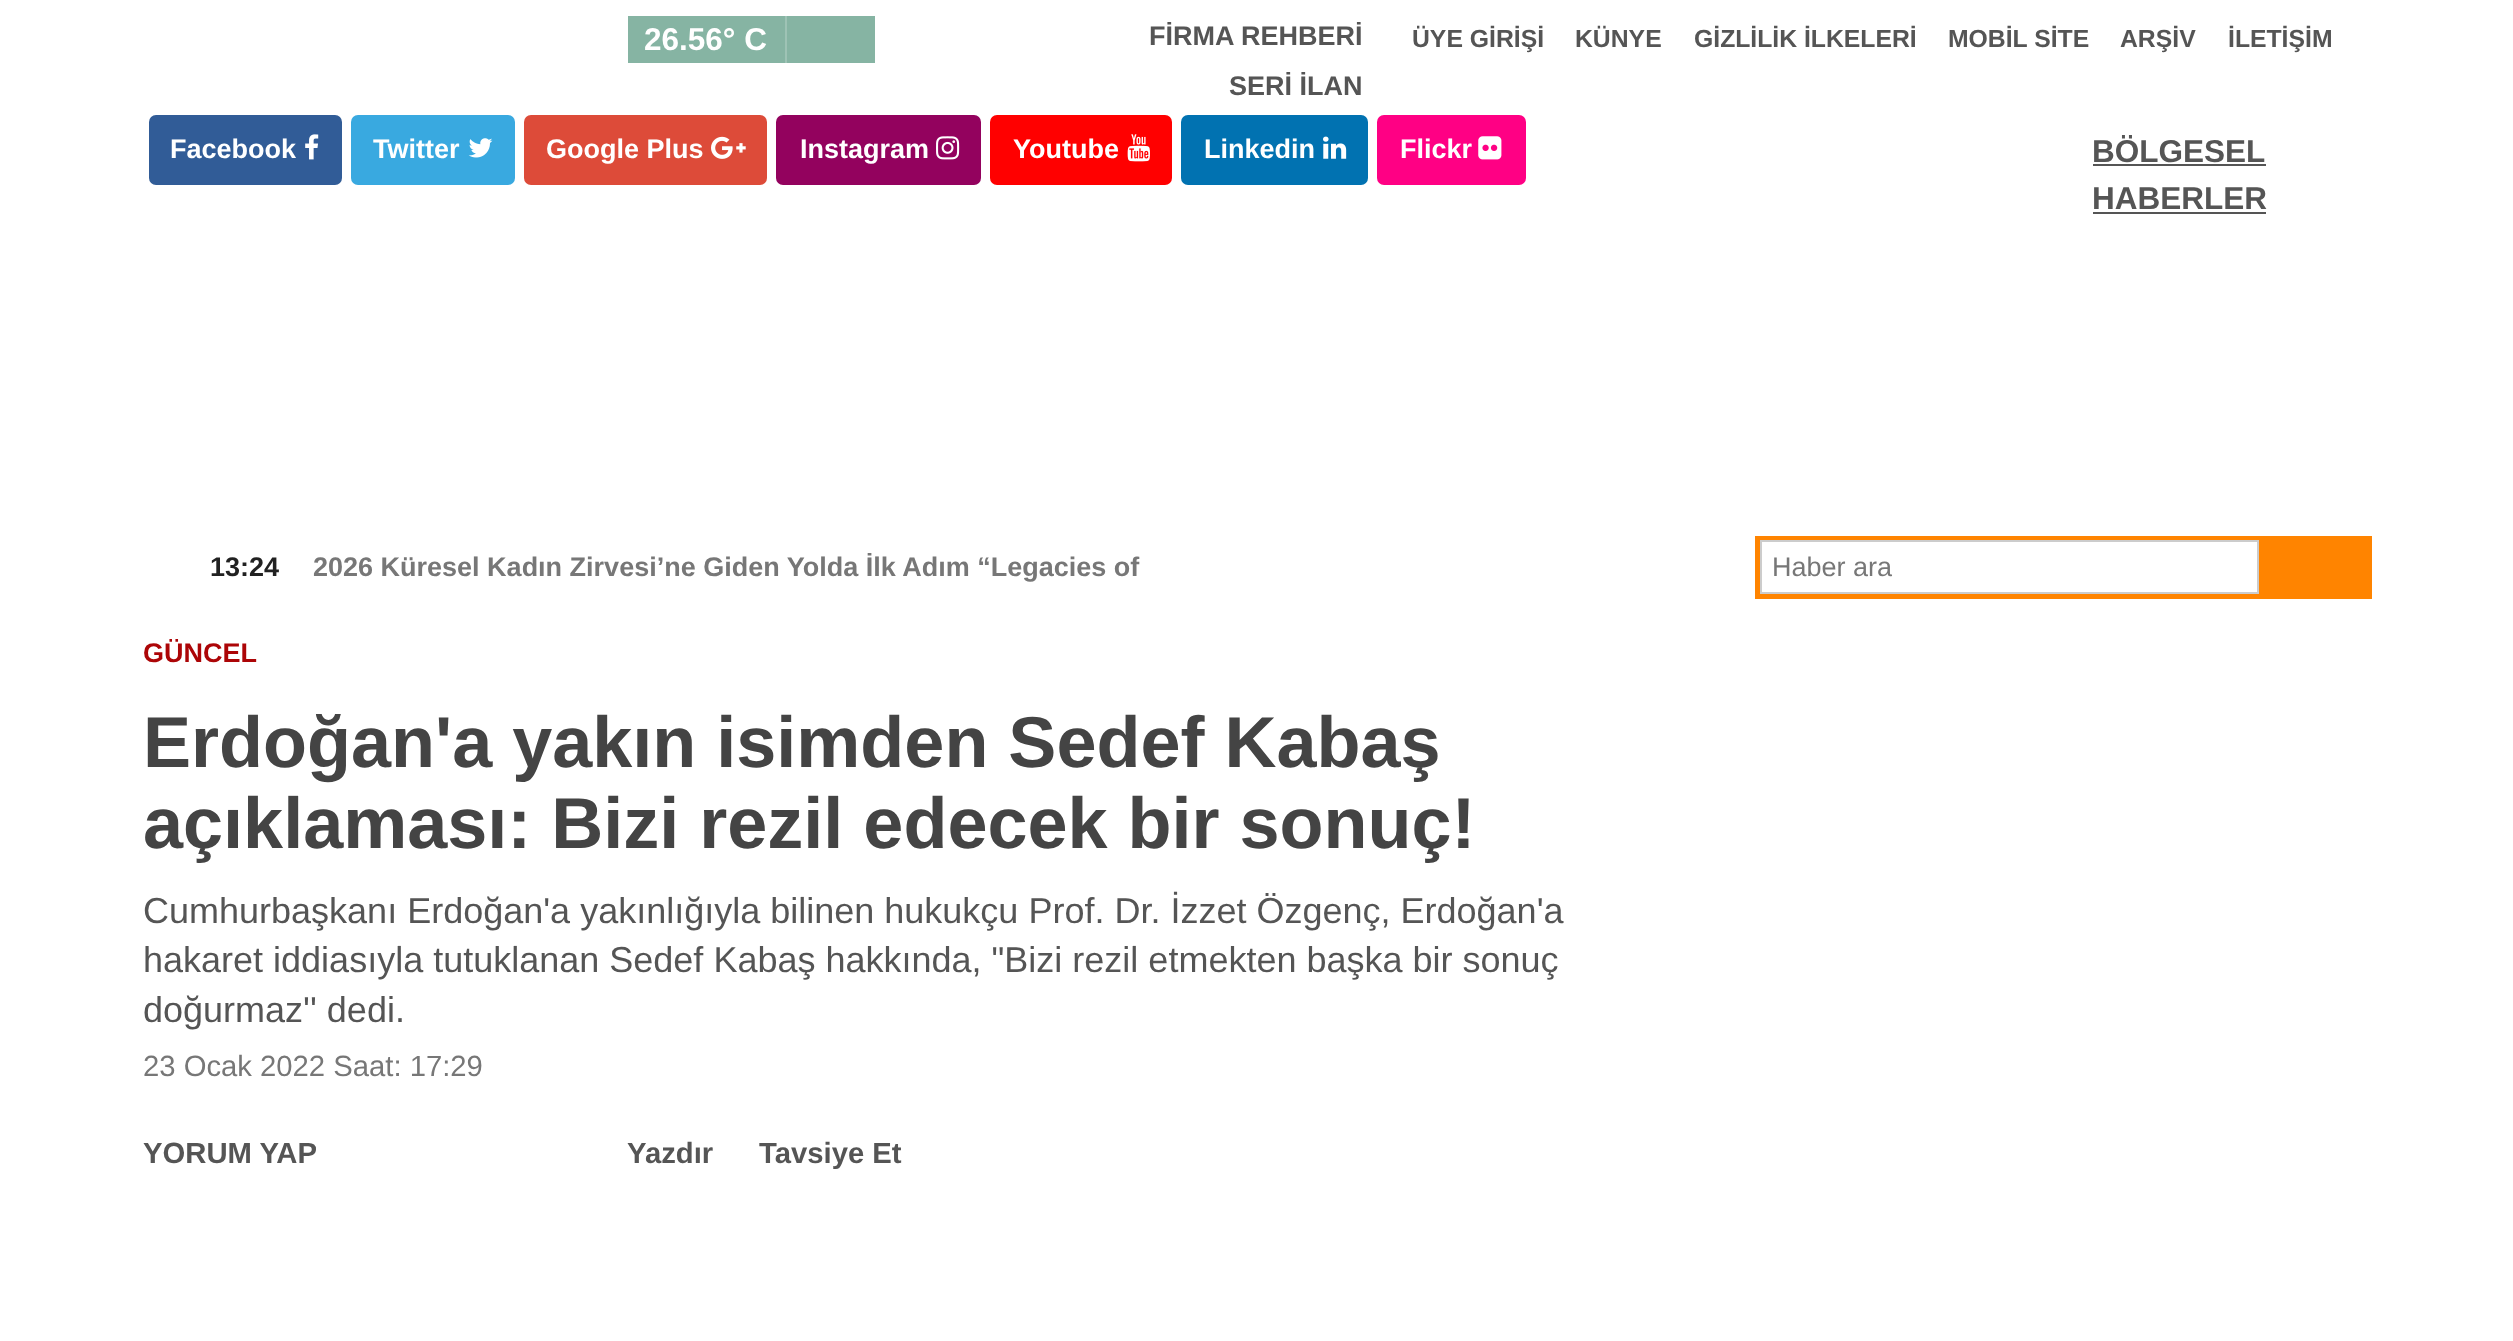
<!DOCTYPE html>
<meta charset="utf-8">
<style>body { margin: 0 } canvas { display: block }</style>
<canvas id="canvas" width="2513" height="1341"></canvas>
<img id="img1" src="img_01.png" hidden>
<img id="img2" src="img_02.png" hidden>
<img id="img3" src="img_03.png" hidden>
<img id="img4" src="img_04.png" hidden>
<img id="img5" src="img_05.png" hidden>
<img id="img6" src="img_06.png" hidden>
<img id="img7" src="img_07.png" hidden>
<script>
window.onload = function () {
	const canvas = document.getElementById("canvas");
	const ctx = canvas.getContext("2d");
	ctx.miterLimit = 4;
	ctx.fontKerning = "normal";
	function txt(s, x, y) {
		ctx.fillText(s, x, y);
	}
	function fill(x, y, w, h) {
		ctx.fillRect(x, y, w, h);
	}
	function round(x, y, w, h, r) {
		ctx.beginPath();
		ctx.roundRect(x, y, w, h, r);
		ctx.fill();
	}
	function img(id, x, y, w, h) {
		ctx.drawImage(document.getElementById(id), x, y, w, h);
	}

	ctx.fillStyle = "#FFFFFF";
	fill(0, 0, 2513, 1341);
	ctx.fillStyle = "#86B4A3";
	fill(628, 16, 247, 47);
	ctx.fillStyle = "#9EC3B5";
	fill(785, 16, 2, 47);
	ctx.fillStyle = "#315C97";
	round(149, 115, 193, 70, 7);
	img("img1", 305, 134, 14, 26);
	ctx.fillStyle = "#39A9E0";
	round(351, 115, 164, 70, 7);
	img("img2", 468, 138, 25, 20);
	ctx.fillStyle = "#DD4B39";
	round(524, 115, 243, 70, 7);
	img("img3", 711, 136, 35, 23);
	ctx.fillStyle = "#93025E";
	round(776, 115, 205, 70, 7);
	img("img4", 936, 136, 24, 24);
	ctx.fillStyle = "#FF0000";
	round(990, 115, 182, 70, 7);
	img("img5", 1127, 134, 23, 28);
	ctx.fillStyle = "#0172B1";
	round(1181, 115, 187, 70, 7);
	img("img6", 1323, 136, 24, 23);
	ctx.fillStyle = "#FF0084";
	round(1377, 115, 149, 70, 7);
	img("img7", 1478, 136, 24, 24);
	ctx.fillStyle = "#555555";
	fill(2093, 164, 173, 2);
	fill(2093, 212, 173, 2);
	ctx.fillStyle = "#FF8400";
	fill(1755, 536, 617, 63);
	ctx.fillStyle = "#FFFFFF";
	ctx.beginPath();
	ctx.rect(1761, 541, 497, 52);
	ctx.fill();
	ctx.strokeStyle = "#CCCCCC";
	ctx.lineWidth = 2;
	ctx.stroke();
	ctx.font = "bold 31.5px Liberation Sans";
	txt("26.56° C", 644, 50);
	ctx.font = "bold 27px Liberation Sans";
	ctx.fillStyle = "#555555";
	txt("FİRMA REHBERİ", 1149, 45);
	ctx.font = "bold 24.75px Liberation Sans";
	txt("ÜYE GİRİŞİ", 1412, 47);
	txt("KÜNYE", 1575, 47);
	txt("GİZLİLİK İLKELERİ", 1694, 47);
	txt("MOBİL SİTE", 1948, 47);
	txt("ARŞİV", 2120, 47);
	txt("İLETİŞİM", 2228, 47);
	ctx.font = "bold 27px Liberation Sans";
	txt("SERİ İLAN", 1229, 95);
	ctx.fillStyle = "#FFFFFF";
	txt("Facebook", 170, 158);
	txt("Twitter", 373, 158);
	txt("Google Plus", 546, 158);
	txt("Instagram", 800, 158);
	txt("Youtube", 1013, 158);
	txt("Linkedin", 1204, 158);
	txt("Flickr", 1400, 158);
	ctx.font = "bold 31.5px Liberation Sans";
	ctx.fillStyle = "#555555";
	txt("BÖLGESEL", 2092, 162);
	txt("HABERLER", 2092, 209);
	ctx.font = "bold 27px Liberation Sans";
	ctx.fillStyle = "#212121";
	txt("13:24", 210, 576);
	ctx.fillStyle = "#777777";
	txt("2026 Küresel Kadın Zirvesi’ne Giden Yolda İlk Adım “Legacies of", 313, 576);
	ctx.font = "27px Liberation Sans";
	txt("Haber ara", 1772, 576);
	ctx.font = "bold 27px Liberation Sans";
	ctx.fillStyle = "#AC0507";
	txt("GÜNCEL", 143, 662);
	ctx.font = "bold 72px Liberation Sans";
	ctx.fillStyle = "#444444";
	txt("Erdoğan'a yakın isimden Sedef Kabaş", 143, 767);
	txt("açıklaması: Bizi rezil edecek bir sonuç!", 143, 848);
	ctx.font = "36px Liberation Sans";
	ctx.fillStyle = "#555555";
	txt("Cumhurbaşkanı Erdoğan'a yakınlığıyla bilinen hukukçu Prof. Dr. İzzet Özgenç, Erdoğan'a", 143, 923);
	txt("hakaret iddiasıyla tutuklanan Sedef Kabaş hakkında, \"Bizi rezil etmekten başka bir sonuç", 143, 972);
	txt("doğurmaz'' dedi.", 143, 1022);
	ctx.font = "29.25px Liberation Sans";
	ctx.fillStyle = "#777777";
	txt("23 Ocak 2022 Saat: 17:29", 143, 1076);
	ctx.font = "bold 29.25px Liberation Sans";
	ctx.fillStyle = "#555555";
	txt("YORUM YAP", 143, 1163);
	txt("Yazdır", 627, 1163);
	txt("Tavsiye Et", 759, 1163);
};
</script>
